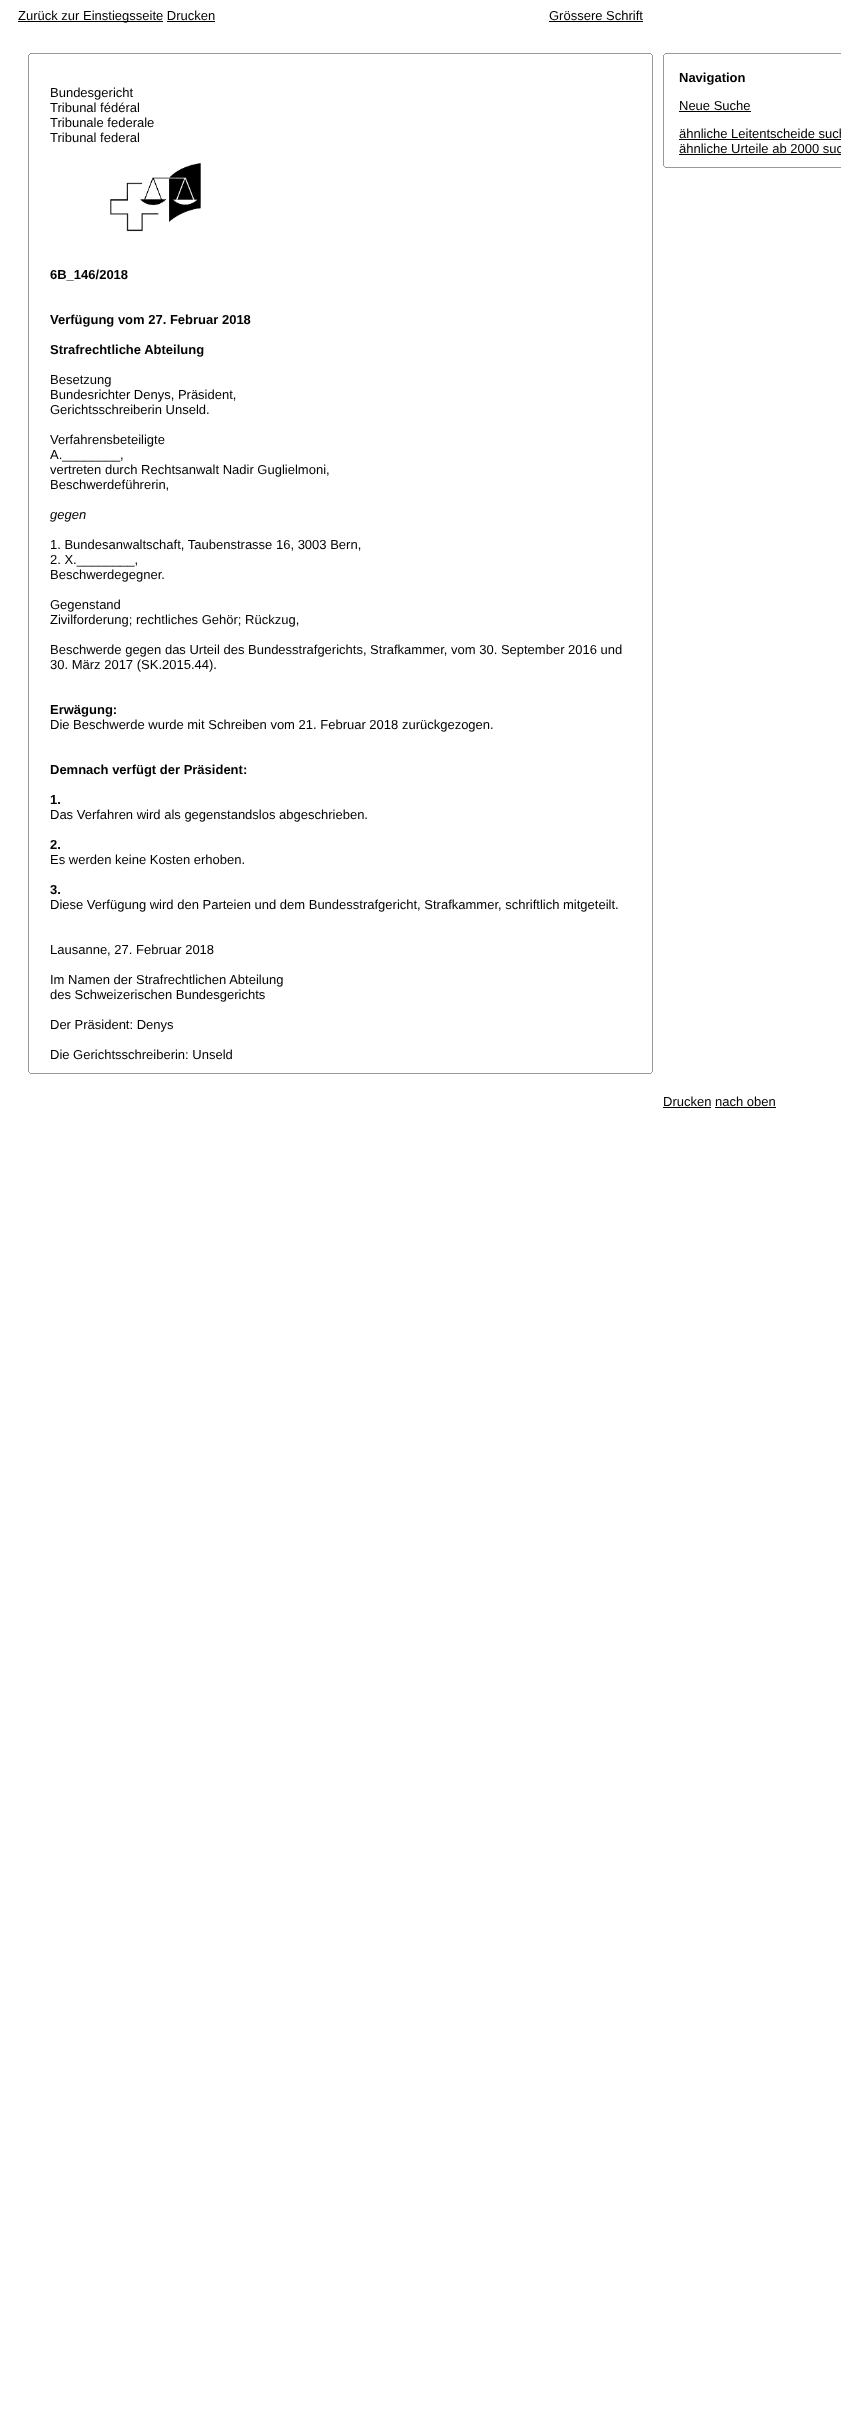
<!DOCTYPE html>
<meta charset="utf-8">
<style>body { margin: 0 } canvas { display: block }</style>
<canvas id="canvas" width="841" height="2432"></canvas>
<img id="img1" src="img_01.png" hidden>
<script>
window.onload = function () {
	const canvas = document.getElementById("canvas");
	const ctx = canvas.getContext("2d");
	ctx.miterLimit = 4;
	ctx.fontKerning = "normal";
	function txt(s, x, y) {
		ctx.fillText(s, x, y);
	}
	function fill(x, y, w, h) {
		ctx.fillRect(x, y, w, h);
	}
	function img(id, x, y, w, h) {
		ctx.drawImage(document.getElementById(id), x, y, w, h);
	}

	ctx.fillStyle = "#FFFFFF";
	fill(0, 0, 841, 2432);
	ctx.fillStyle = "#000000";
	fill(18, 21, 145, 1);
	fill(167, 21, 48, 1);
	fill(549, 21, 94, 1);
	ctx.fillStyle = "#999999";
	fill(30, 53, 621, 1);
	fill(651, 54, 1, 1);
	fill(29, 54, 1, 1);
	fill(652, 55, 1, 1017);
	fill(28, 55, 1, 1017);
	img("img1", 110, 163, 91, 69);
	fill(651, 1072, 1, 1);
	fill(29, 1072, 1, 1);
	fill(30, 1073, 621, 1);
	fill(665, 53, 176, 1);
	fill(664, 54, 1, 1);
	fill(663, 55, 1, 111);
	ctx.fillStyle = "#000000";
	fill(679, 111, 72, 1);
	fill(679, 139, 162, 1);
	fill(679, 154, 162, 1);
	ctx.fillStyle = "#999999";
	fill(664, 166, 1, 1);
	fill(665, 167, 176, 1);
	ctx.fillStyle = "#000000";
	fill(663, 1107, 48, 1);
	fill(715, 1107, 61, 1);
	ctx.font = "13px Liberation Sans";
	txt("Zurück zur Einstiegsseite Drucken", 18, 20);
	txt("Grössere Schrift", 549, 20);
	txt("Bundesgericht", 50, 97);
	txt("Tribunal fédéral", 50, 112);
	txt("Tribunale federale", 50, 127);
	txt("Tribunal federal", 50, 142);
	ctx.font = "bold 13px Liberation Sans";
	txt("6B_146/2018", 50, 279);
	txt("Verfügung vom 27. Februar 2018", 50, 324);
	txt("Strafrechtliche Abteilung", 50, 354);
	ctx.font = "13px Liberation Sans";
	txt("Besetzung", 50, 384);
	txt("Bundesrichter Denys, Präsident,", 50, 399);
	txt("Gerichtsschreiberin Unseld.", 50, 414);
	txt("Verfahrensbeteiligte", 50, 444);
	txt("A.________,", 50, 459);
	txt("vertreten durch Rechtsanwalt Nadir Guglielmoni,", 50, 474);
	txt("Beschwerdeführerin,", 50, 489);
	ctx.font = "italic 13px Liberation Sans";
	txt("gegen", 50, 519);
	ctx.font = "13px Liberation Sans";
	txt("1. Bundesanwaltschaft, Taubenstrasse 16, 3003 Bern,", 50, 549);
	txt("2. X.________,", 50, 564);
	txt("Beschwerdegegner.", 50, 579);
	txt("Gegenstand", 50, 609);
	txt("Zivilforderung; rechtliches Gehör; Rückzug,", 50, 624);
	txt("Beschwerde gegen das Urteil des Bundesstrafgerichts, Strafkammer, vom 30. September 2016 und", 50, 654);
	txt("30. März 2017 (SK.2015.44).", 50, 669);
	ctx.font = "bold 13px Liberation Sans";
	txt("Erwägung:", 50, 714);
	ctx.font = "13px Liberation Sans";
	txt("Die Beschwerde wurde mit Schreiben vom 21. Februar 2018 zurückgezogen.", 50, 729);
	ctx.font = "bold 13px Liberation Sans";
	txt("Demnach verfügt der Präsident:", 50, 774);
	txt("1.", 50, 804);
	ctx.font = "13px Liberation Sans";
	txt("Das Verfahren wird als gegenstandslos abgeschrieben.", 50, 819);
	ctx.font = "bold 13px Liberation Sans";
	txt("2.", 50, 849);
	ctx.font = "13px Liberation Sans";
	txt("Es werden keine Kosten erhoben.", 50, 864);
	ctx.font = "bold 13px Liberation Sans";
	txt("3.", 50, 894);
	ctx.font = "13px Liberation Sans";
	txt("Diese Verfügung wird den Parteien und dem Bundesstrafgericht, Strafkammer, schriftlich mitgeteilt.", 50, 909);
	txt("Lausanne, 27. Februar 2018", 50, 954);
	txt("Im Namen der Strafrechtlichen Abteilung", 50, 984);
	txt("des Schweizerischen Bundesgerichts", 50, 999);
	txt("Der Präsident: Denys", 50, 1029);
	txt("Die Gerichtsschreiberin: Unseld", 50, 1059);
	ctx.font = "bold 13px Liberation Sans";
	txt("Navigation", 679, 82);
	ctx.font = "13px Liberation Sans";
	txt("Neue Suche", 679, 110);
	txt("ähnliche Leitentscheide such", 679, 138);
	txt("ähnliche Urteile ab 2000 suc", 679, 153);
	txt("Drucken nach oben", 663, 1106);
};
</script>
